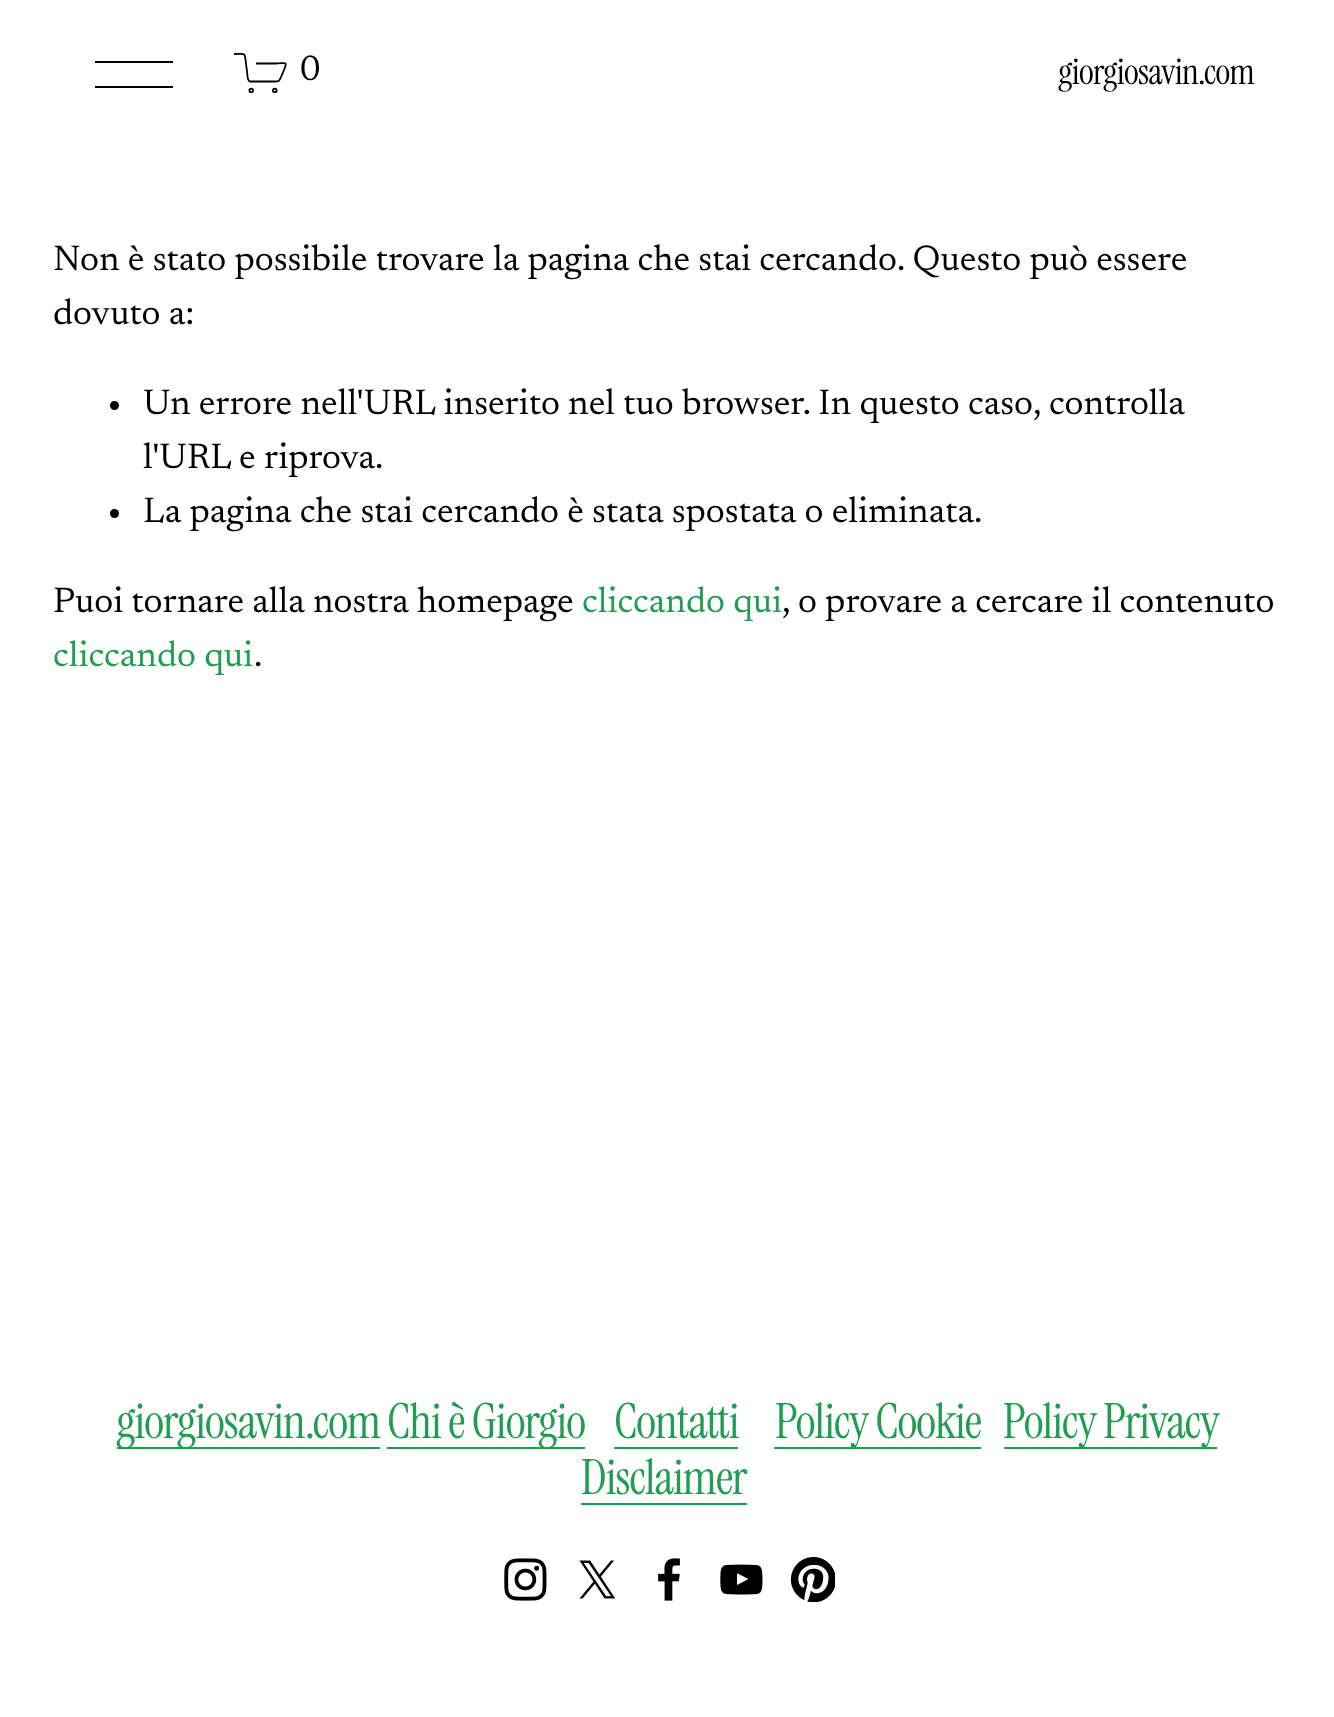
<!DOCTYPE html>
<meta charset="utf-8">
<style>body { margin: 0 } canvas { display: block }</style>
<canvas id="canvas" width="1334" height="1717"></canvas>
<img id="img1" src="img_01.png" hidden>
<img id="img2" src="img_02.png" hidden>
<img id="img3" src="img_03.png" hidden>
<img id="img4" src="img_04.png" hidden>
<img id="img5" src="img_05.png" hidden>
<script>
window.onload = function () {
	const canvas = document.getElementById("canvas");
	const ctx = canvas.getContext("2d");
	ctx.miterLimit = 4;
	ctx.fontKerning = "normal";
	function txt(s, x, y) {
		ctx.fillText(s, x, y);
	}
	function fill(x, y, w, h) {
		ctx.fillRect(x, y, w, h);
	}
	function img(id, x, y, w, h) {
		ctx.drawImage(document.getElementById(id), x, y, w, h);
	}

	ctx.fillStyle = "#FFFFFF";
	fill(0, 0, 1334, 1717);
	ctx.fillStyle = "#000000";
	fill(95, 61, 78, 2);
	fill(95, 86, 78, 2);
	ctx.beginPath();
	ctx.arc(274.8, 90.4, 1.8, 0, Math.PI * 2);
	ctx.strokeStyle = "#000000";
	ctx.lineWidth = 1.8;
	ctx.stroke();
	ctx.beginPath();
	ctx.arc(251.2, 90.4, 1.8, 0, Math.PI * 2);
	ctx.stroke();
	ctx.beginPath();
	ctx.moveTo(234, 54);
	ctx.bezierCurveTo(246, 54, 244.5, 51.5, 246, 63.5);
	ctx.lineTo(247, 71.5);
	ctx.bezierCurveTo(247.5, 73, 247, 81.5, 250, 81.5);
	ctx.lineTo(273, 81.5);
	ctx.bezierCurveTo(278.5, 81.5, 279, 82, 281, 77);
	ctx.lineTo(284, 70);
	ctx.bezierCurveTo(287.5, 60.5, 286.5, 63.5, 275, 63.5);
	ctx.lineTo(256, 63.5);
	ctx.stroke();
	ctx.beginPath();
	ctx.arc(114.5, 405.5, 4.5, 0, Math.PI * 2);
	ctx.fill();
	ctx.beginPath();
	ctx.arc(114.5, 513.5, 4.5, 0, Math.PI * 2);
	ctx.fill();
	ctx.fillStyle = "#209D50";
	fill(117, 1447, 263, 2);
	fill(387, 1447, 198, 2);
	fill(614, 1447, 124, 2);
	fill(774, 1447, 207, 2);
	fill(1004, 1447, 213, 2);
	fill(581, 1503, 166, 2);
	img("img1", 504, 1558, 43, 43);
	img("img2", 579, 1560, 37, 39);
	img("img3", 658, 1558, 22, 43);
	img("img4", 720, 1564, 43, 31);
	img("img5", 790, 1557, 45, 45);
	ctx.font = "36px Newsreader";
	ctx.fillStyle = "#000000";
	txt("0", 300, 80);
	ctx.letterSpacing = "-0.75px";
	ctx.font = "36px Instrument Serif";
	txt("giorgiosavin.com", 1058, 84);
	ctx.letterSpacing = "0px";
	ctx.font = "36px Newsreader";
	txt("Non è stato possibile trovare la pagina che stai cercando. Questo può essere", 53, 270);
	txt("dovuto a:", 53, 324);
	txt("Un errore nell'URL inserito nel tuo browser. In questo caso, controlla", 143, 414);
	txt("l'URL e riprova.", 143, 468);
	txt("La pagina che stai cercando è stata spostata o eliminata.", 143, 522);
	txt("Puoi tornare alla nostra homepage", 53, 612);
	ctx.fillStyle = "#209D50";
	txt("cliccando qui", 582, 612);
	ctx.fillStyle = "#000000";
	txt(", o provare a cercare il contenuto", 782, 612);
	ctx.fillStyle = "#209D50";
	txt("cliccando qui", 53, 666);
	ctx.fillStyle = "#000000";
	txt(".", 254, 666);
	ctx.letterSpacing = "-1px";
	ctx.font = "48.5px Instrument Serif";
	ctx.fillStyle = "#209D50";
	txt("giorgiosavin.com", 116, 1438);
	txt("Chi è Giorgio", 387, 1438);
	txt("Contatti", 614, 1438);
	txt("Policy Cookie", 775, 1438);
	txt("Policy Privacy", 1003, 1438);
	txt("Disclaimer", 581, 1494);
};
</script>
